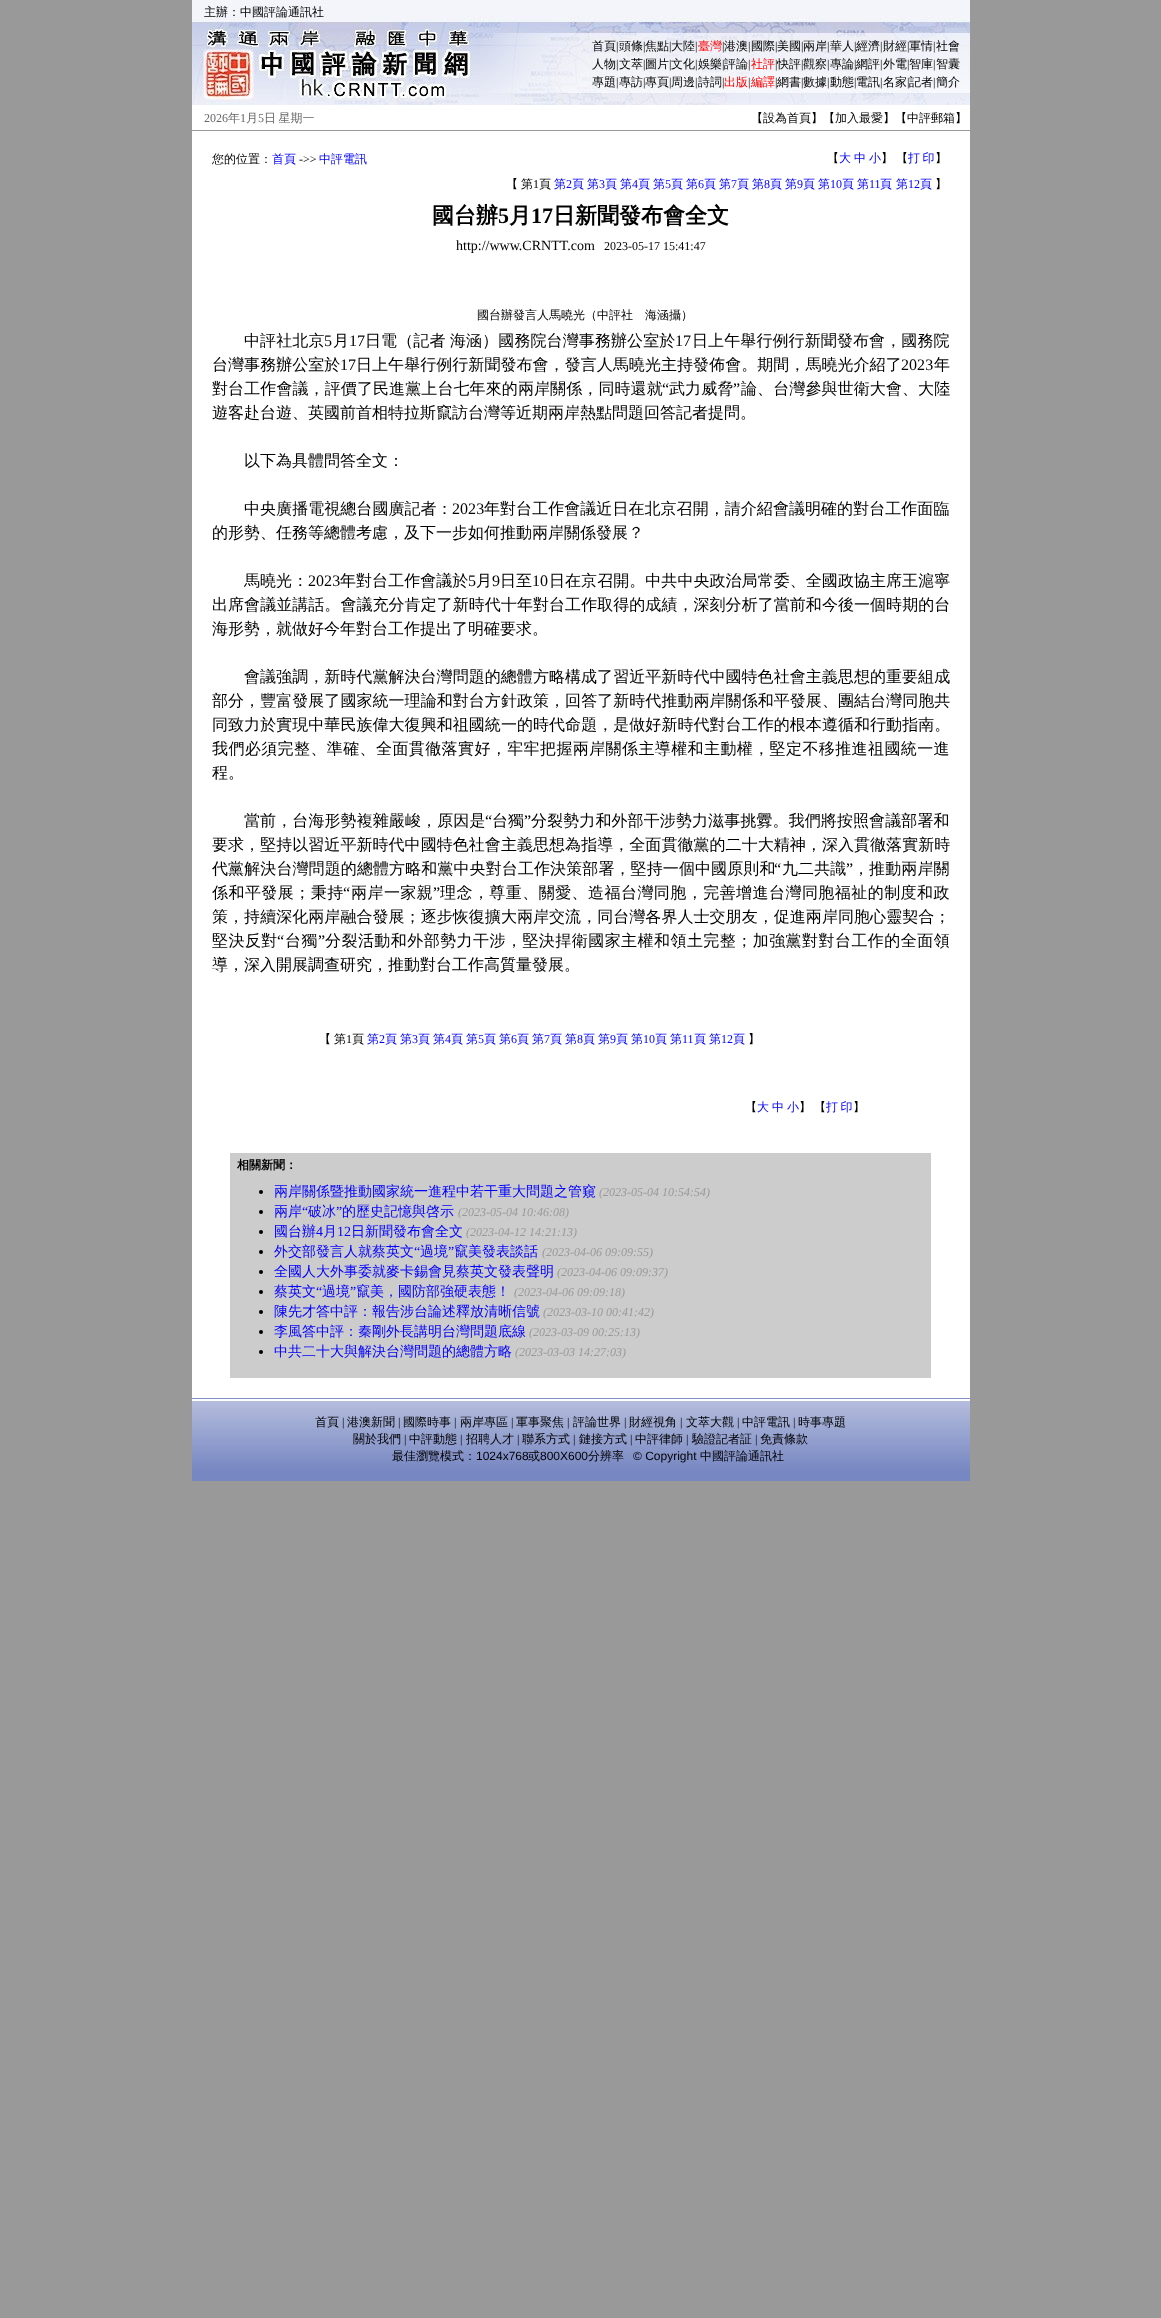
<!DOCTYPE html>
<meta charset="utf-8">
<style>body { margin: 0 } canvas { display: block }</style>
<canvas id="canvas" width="1161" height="2318"></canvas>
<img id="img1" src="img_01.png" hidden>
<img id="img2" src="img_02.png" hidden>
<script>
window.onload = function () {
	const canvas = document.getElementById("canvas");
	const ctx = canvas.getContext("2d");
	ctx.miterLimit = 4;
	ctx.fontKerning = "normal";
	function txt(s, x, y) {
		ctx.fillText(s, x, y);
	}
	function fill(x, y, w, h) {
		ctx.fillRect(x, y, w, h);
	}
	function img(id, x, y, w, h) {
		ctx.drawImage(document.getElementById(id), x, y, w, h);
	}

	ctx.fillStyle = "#999999";
	fill(0, 0, 1161, 2318);
	img("img1", 192, 0, 778, 105);
	ctx.fillStyle = "#FFFFFF";
	fill(192, 105, 778, 25);
	fill(192, 131, 778, 1267);
	ctx.fillStyle = "#CCCCCC";
	fill(230, 1153, 701, 225);
	ctx.fillStyle = "#000000";
	ctx.beginPath();
	ctx.arc(261, 1192, 2, 0, Math.PI * 2);
	ctx.fill();
	ctx.beginPath();
	ctx.arc(261, 1212, 2, 0, Math.PI * 2);
	ctx.fill();
	ctx.beginPath();
	ctx.arc(261, 1232, 2, 0, Math.PI * 2);
	ctx.fill();
	ctx.beginPath();
	ctx.arc(261, 1252, 2, 0, Math.PI * 2);
	ctx.fill();
	ctx.beginPath();
	ctx.arc(261, 1272, 2, 0, Math.PI * 2);
	ctx.fill();
	ctx.beginPath();
	ctx.arc(261, 1292, 2, 0, Math.PI * 2);
	ctx.fill();
	ctx.beginPath();
	ctx.arc(261, 1312, 2, 0, Math.PI * 2);
	ctx.fill();
	ctx.beginPath();
	ctx.arc(261, 1332, 2, 0, Math.PI * 2);
	ctx.fill();
	ctx.beginPath();
	ctx.arc(261, 1352, 2, 0, Math.PI * 2);
	ctx.fill();
	img("img2", 192, 1398, 778, 83);
	ctx.font = "500 12px WenQuanYi Zen Hei";
	txt("主辦：中國評論通訊社", 204, 16);
	txt("首頁", 592, 50);
	ctx.font = "12px Liberation Serif";
	txt("|", 616, 50);
	ctx.font = "500 12px WenQuanYi Zen Hei";
	txt("頭條", 619, 50);
	ctx.font = "12px Liberation Serif";
	txt("|", 643, 50);
	ctx.font = "500 12px WenQuanYi Zen Hei";
	txt("焦點", 645, 50);
	ctx.font = "12px Liberation Serif";
	txt("|", 669, 50);
	ctx.font = "500 12px WenQuanYi Zen Hei";
	txt("大陸", 671, 50);
	ctx.font = "12px Liberation Serif";
	txt("|", 695, 50);
	ctx.font = "500 12px WenQuanYi Zen Hei";
	ctx.fillStyle = "#FF0000";
	txt("臺灣", 698, 50);
	ctx.font = "12px Liberation Serif";
	ctx.fillStyle = "#000000";
	txt("|", 722, 50);
	ctx.font = "500 12px WenQuanYi Zen Hei";
	txt("港澳", 724, 50);
	ctx.font = "12px Liberation Serif";
	txt("|", 748, 50);
	ctx.font = "500 12px WenQuanYi Zen Hei";
	txt("國際", 751, 50);
	ctx.font = "12px Liberation Serif";
	txt("|", 775, 50);
	ctx.font = "500 12px WenQuanYi Zen Hei";
	txt("美國", 777, 50);
	ctx.font = "12px Liberation Serif";
	txt("|", 801, 50);
	ctx.font = "500 12px WenQuanYi Zen Hei";
	txt("兩岸", 803, 50);
	ctx.font = "12px Liberation Serif";
	txt("|", 827, 50);
	ctx.font = "500 12px WenQuanYi Zen Hei";
	txt("華人", 830, 50);
	ctx.font = "12px Liberation Serif";
	txt("|", 854, 50);
	ctx.font = "500 12px WenQuanYi Zen Hei";
	txt("經濟", 856, 50);
	ctx.font = "12px Liberation Serif";
	txt("|", 880, 50);
	ctx.font = "500 12px WenQuanYi Zen Hei";
	txt("財經", 883, 50);
	ctx.font = "12px Liberation Serif";
	txt("|", 907, 50);
	ctx.font = "500 12px WenQuanYi Zen Hei";
	txt("軍情", 909, 50);
	ctx.font = "12px Liberation Serif";
	txt("|", 933, 50);
	ctx.font = "500 12px WenQuanYi Zen Hei";
	txt("社會", 936, 50);
	txt("人物", 592, 68);
	ctx.font = "12px Liberation Serif";
	txt("|", 616, 68);
	ctx.font = "500 12px WenQuanYi Zen Hei";
	txt("文萃", 619, 68);
	ctx.font = "12px Liberation Serif";
	txt("|", 643, 68);
	ctx.font = "500 12px WenQuanYi Zen Hei";
	txt("圖片", 645, 68);
	ctx.font = "12px Liberation Serif";
	txt("|", 669, 68);
	ctx.font = "500 12px WenQuanYi Zen Hei";
	txt("文化", 671, 68);
	ctx.font = "12px Liberation Serif";
	txt("|", 695, 68);
	ctx.font = "500 12px WenQuanYi Zen Hei";
	txt("娛樂", 698, 68);
	ctx.font = "12px Liberation Serif";
	txt("|", 722, 68);
	ctx.font = "500 12px WenQuanYi Zen Hei";
	txt("評論", 724, 68);
	ctx.font = "12px Liberation Serif";
	txt("|", 748, 68);
	ctx.font = "500 12px WenQuanYi Zen Hei";
	ctx.fillStyle = "#FF0000";
	txt("社評", 751, 68);
	ctx.fillStyle = "#000000";
	txt("觀察", 803, 68);
	txt("專論", 830, 68);
	txt("網評", 856, 68);
	txt("外電", 883, 68);
	txt("智庫", 909, 68);
	txt("智囊", 936, 68);
	ctx.font = "12px Liberation Serif";
	txt("|", 775, 68);
	ctx.font = "500 12px WenQuanYi Zen Hei";
	txt("快評", 777, 68);
	ctx.font = "12px Liberation Serif";
	txt("|", 801, 68);
	txt("|", 827, 68);
	txt("|", 854, 68);
	txt("|", 880, 68);
	txt("|", 907, 68);
	txt("|", 933, 68);
	ctx.font = "500 12px WenQuanYi Zen Hei";
	txt("專題", 592, 86);
	ctx.font = "12px Liberation Serif";
	txt("|", 616, 86);
	ctx.font = "500 12px WenQuanYi Zen Hei";
	txt("專訪", 619, 86);
	ctx.font = "12px Liberation Serif";
	txt("|", 643, 86);
	ctx.font = "500 12px WenQuanYi Zen Hei";
	txt("專頁", 645, 86);
	ctx.font = "12px Liberation Serif";
	txt("|", 669, 86);
	ctx.font = "500 12px WenQuanYi Zen Hei";
	txt("周邊", 671, 86);
	ctx.font = "12px Liberation Serif";
	txt("|", 695, 86);
	ctx.font = "500 12px WenQuanYi Zen Hei";
	txt("詩詞", 698, 86);
	ctx.font = "12px Liberation Serif";
	txt("|", 722, 86);
	ctx.font = "500 12px WenQuanYi Zen Hei";
	ctx.fillStyle = "#FF0000";
	txt("出版", 724, 86);
	ctx.font = "12px Liberation Serif";
	ctx.fillStyle = "#000000";
	txt("|", 748, 86);
	ctx.font = "500 12px WenQuanYi Zen Hei";
	ctx.fillStyle = "#FF0000";
	txt("編譯", 751, 86);
	ctx.font = "12px Liberation Serif";
	ctx.fillStyle = "#000000";
	txt("|", 775, 86);
	ctx.font = "500 12px WenQuanYi Zen Hei";
	txt("網書", 777, 86);
	ctx.font = "12px Liberation Serif";
	txt("|", 801, 86);
	ctx.font = "500 12px WenQuanYi Zen Hei";
	txt("數據", 803, 86);
	ctx.font = "12px Liberation Serif";
	txt("|", 827, 86);
	ctx.font = "500 12px WenQuanYi Zen Hei";
	txt("動態", 830, 86);
	ctx.font = "12px Liberation Serif";
	txt("|", 854, 86);
	ctx.font = "500 12px WenQuanYi Zen Hei";
	txt("電訊", 856, 86);
	ctx.font = "12px Liberation Serif";
	txt("|", 880, 86);
	ctx.font = "500 12px WenQuanYi Zen Hei";
	txt("名家", 883, 86);
	ctx.font = "12px Liberation Serif";
	txt("|", 907, 86);
	ctx.font = "500 12px WenQuanYi Zen Hei";
	txt("記者", 909, 86);
	ctx.font = "12px Liberation Serif";
	txt("|", 933, 86);
	ctx.font = "500 12px WenQuanYi Zen Hei";
	txt("簡介", 936, 86);
	ctx.font = "12px Liberation Serif";
	ctx.fillStyle = "#666666";
	txt("2026", 204, 122);
	ctx.font = "500 12px WenQuanYi Zen Hei";
	txt("年", 228, 122);
	ctx.font = "12px Liberation Serif";
	txt("1", 240, 122);
	ctx.font = "500 12px WenQuanYi Zen Hei";
	txt("月", 246, 122);
	ctx.font = "12px Liberation Serif";
	txt("5", 258, 122);
	ctx.wordSpacing = "-1px";
	ctx.font = "500 12px WenQuanYi Zen Hei";
	txt("日 星期一", 264, 122);
	ctx.wordSpacing = "0px";
	ctx.fillStyle = "#000000";
	txt("【設為首頁】【加入最愛】【中評郵箱】", 751, 122);
	txt("您的位置：", 212, 163);
	ctx.fillStyle = "#0000FF";
	txt("首頁", 272, 163);
	ctx.font = "12px Liberation Serif";
	ctx.fillStyle = "#000000";
	txt("->>", 299, 163);
	ctx.font = "500 12px WenQuanYi Zen Hei";
	ctx.fillStyle = "#0000FF";
	txt("中評電訊", 319, 163);
	ctx.fillStyle = "#000000";
	txt("【", 827, 162);
	ctx.fillStyle = "#0000FF";
	txt("大", 839, 162);
	txt("中", 854, 162);
	txt("小", 869, 162);
	ctx.fillStyle = "#000000";
	txt("】", 881, 162);
	txt("【", 896, 162);
	ctx.wordSpacing = "-1px";
	ctx.fillStyle = "#0000FF";
	txt("打 印", 908, 162);
	ctx.wordSpacing = "0px";
	ctx.fillStyle = "#000000";
	txt("】", 935, 162);
	txt("【", 506, 188);
	txt("第", 521, 188);
	ctx.font = "12px Liberation Serif";
	txt("1", 533, 188);
	ctx.font = "500 12px WenQuanYi Zen Hei";
	txt("頁", 539, 188);
	ctx.fillStyle = "#0000FF";
	txt("第", 554, 188);
	ctx.font = "12px Liberation Serif";
	txt("2", 566, 188);
	ctx.font = "500 12px WenQuanYi Zen Hei";
	txt("頁", 572, 188);
	txt("第", 587, 188);
	ctx.font = "12px Liberation Serif";
	txt("3", 599, 188);
	ctx.font = "500 12px WenQuanYi Zen Hei";
	txt("頁", 605, 188);
	txt("第", 620, 188);
	ctx.font = "12px Liberation Serif";
	txt("4", 632, 188);
	ctx.font = "500 12px WenQuanYi Zen Hei";
	txt("頁", 638, 188);
	txt("第", 653, 188);
	ctx.font = "12px Liberation Serif";
	txt("5", 665, 188);
	ctx.font = "500 12px WenQuanYi Zen Hei";
	txt("頁", 671, 188);
	txt("第", 686, 188);
	ctx.font = "12px Liberation Serif";
	txt("6", 698, 188);
	ctx.font = "500 12px WenQuanYi Zen Hei";
	txt("頁", 704, 188);
	txt("第", 719, 188);
	ctx.font = "12px Liberation Serif";
	txt("7", 731, 188);
	ctx.font = "500 12px WenQuanYi Zen Hei";
	txt("頁", 737, 188);
	txt("第", 752, 188);
	ctx.font = "12px Liberation Serif";
	txt("8", 764, 188);
	ctx.font = "500 12px WenQuanYi Zen Hei";
	txt("頁", 770, 188);
	txt("第", 785, 188);
	ctx.font = "12px Liberation Serif";
	txt("9", 797, 188);
	ctx.font = "500 12px WenQuanYi Zen Hei";
	txt("頁", 803, 188);
	txt("第", 818, 188);
	ctx.font = "12px Liberation Serif";
	txt("10", 830, 188);
	ctx.font = "500 12px WenQuanYi Zen Hei";
	txt("頁", 842, 188);
	txt("第", 857, 188);
	ctx.font = "12px Liberation Serif";
	txt("11", 869, 188);
	ctx.font = "500 12px WenQuanYi Zen Hei";
	txt("頁", 880, 188);
	txt("第", 896, 188);
	ctx.font = "12px Liberation Serif";
	txt("12", 908, 188);
	ctx.font = "500 12px WenQuanYi Zen Hei";
	txt("頁", 920, 188);
	ctx.fillStyle = "#000000";
	txt("】", 935, 188);
	ctx.font = "bold 22px WenQuanYi Zen Hei";
	txt("國台辦", 432, 223);
	ctx.font = "bold 22px Liberation Serif";
	txt("5", 498, 223);
	ctx.font = "bold 22px WenQuanYi Zen Hei";
	txt("月", 509, 223);
	ctx.font = "bold 22px Liberation Serif";
	txt("17", 531, 223);
	ctx.font = "bold 22px WenQuanYi Zen Hei";
	txt("日新聞發布會全文", 553, 223);
	ctx.font = "14px Liberation Serif";
	txt("http://www.CRNTT.com", 456, 250);
	ctx.font = "12px Liberation Serif";
	txt("2023-05-17 15:41:47", 604, 250);
	ctx.font = "500 12px WenQuanYi Zen Hei";
	txt("國台辦發言人馬曉光（中評社　海涵攝）", 477, 319);
	ctx.letterSpacing = "0.1px";
	ctx.font = "500 16px WenQuanYi Zen Hei";
	txt("中評社北京", 244, 346);
	ctx.font = "16px Liberation Serif";
	txt("5", 324, 346);
	ctx.font = "500 16px WenQuanYi Zen Hei";
	txt("月", 333, 346);
	ctx.font = "16px Liberation Serif";
	txt("17", 349, 346);
	ctx.font = "500 16px WenQuanYi Zen Hei";
	txt("日電（記者", 365, 346);
	txt("海涵）國務院台灣事務辦公室於", 450, 346);
	ctx.font = "16px Liberation Serif";
	txt("17", 675, 346);
	ctx.font = "500 16px WenQuanYi Zen Hei";
	txt("日上午舉行例行新聞發布會，國務院", 692, 346);
	ctx.letterSpacing = "0.05px";
	txt("台灣事務辦公室於", 212, 370);
	ctx.font = "16px Liberation Serif";
	txt("17", 340, 370);
	ctx.font = "500 16px WenQuanYi Zen Hei";
	txt("日上午舉行例行新聞發布會，發言人馬曉光主持發佈會。期間，馬曉光介紹了", 356, 370);
	ctx.font = "16px Liberation Serif";
	txt("2023", 901, 370);
	ctx.font = "500 16px WenQuanYi Zen Hei";
	txt("年", 934, 370);
	ctx.letterSpacing = "0.1px";
	txt("對台工作會議，評價了民進黨上台七年來的兩岸關係，同時還就", 212, 394);
	ctx.font = "16px Liberation Serif";
	txt("“", 662, 394);
	ctx.font = "500 16px WenQuanYi Zen Hei";
	txt("武力威脅", 669, 394);
	ctx.font = "16px Liberation Serif";
	txt("”", 733, 394);
	ctx.font = "500 16px WenQuanYi Zen Hei";
	txt("論、台灣參與世衛大會、大陸", 741, 394);
	ctx.letterSpacing = "0px";
	txt("遊客赴台遊、英國前首相特拉斯竄訪台灣等近期兩岸熱點問題回答記者提問。", 212, 418);
	txt("以下為具體問答全文：", 244, 466);
	ctx.letterSpacing = "0.05px";
	txt("中央廣播電視總台國廣記者：", 244, 514);
	ctx.font = "16px Liberation Serif";
	txt("2023", 452, 514);
	ctx.font = "500 16px WenQuanYi Zen Hei";
	txt("年對台工作會議近日在北京召開，請介紹會議明確的對台工作面臨", 484, 514);
	ctx.letterSpacing = "0px";
	txt("的形勢、任務等總體考慮，及下一步如何推動兩岸關係發展？", 212, 538);
	ctx.letterSpacing = "0.05px";
	txt("馬曉光：", 244, 586);
	ctx.font = "16px Liberation Serif";
	txt("2023", 308, 586);
	ctx.font = "500 16px WenQuanYi Zen Hei";
	txt("年對台工作會議於", 340, 586);
	ctx.font = "16px Liberation Serif";
	txt("5", 468, 586);
	ctx.font = "500 16px WenQuanYi Zen Hei";
	txt("月", 476, 586);
	ctx.font = "16px Liberation Serif";
	txt("9", 492, 586);
	ctx.font = "500 16px WenQuanYi Zen Hei";
	txt("日至", 500, 586);
	ctx.font = "16px Liberation Serif";
	txt("10", 532, 586);
	ctx.font = "500 16px WenQuanYi Zen Hei";
	txt("日在京召開。中共中央政治局常委、全國政協主席王滬寧", 549, 586);
	txt("出席會議並講話。會議充分肯定了新時代十年對台工作取得的成績，深刻分析了當前和今後一個時期的台", 212, 610);
	ctx.letterSpacing = "0px";
	txt("海形勢，就做好今年對台工作提出了明確要求。", 212, 634);
	ctx.letterSpacing = "0.05px";
	txt("會議強調，新時代黨解決台灣問題的總體方略構成了習近平新時代中國特色社會主義思想的重要組成", 244, 682);
	txt("部分，豐富發展了國家統一理論和對台方針政策，回答了新時代推動兩岸關係和平發展、團結台灣同胞共", 212, 706);
	txt("同致力於實現中華民族偉大復興和祖國統一的時代命題，是做好新時代對台工作的根本遵循和行動指南。", 212, 730);
	ctx.letterSpacing = "0.4px";
	txt("我們必須完整、準確、全面貫徹落實好，牢牢把握兩岸關係主導權和主動權，堅定不移推進祖國統一進", 212, 754);
	ctx.letterSpacing = "0px";
	txt("程。", 212, 778);
	ctx.letterSpacing = "0.1px";
	txt("當前，台海形勢複雜嚴峻，原因是", 244, 826);
	ctx.font = "16px Liberation Serif";
	txt("“", 485, 826);
	ctx.font = "500 16px WenQuanYi Zen Hei";
	txt("台獨", 492, 826);
	ctx.font = "16px Liberation Serif";
	txt("”", 524, 826);
	ctx.font = "500 16px WenQuanYi Zen Hei";
	txt("分裂勢力和外部干涉勢力滋事挑釁。我們將按照會議部署和", 531, 826);
	ctx.letterSpacing = "0.05px";
	txt("要求，堅持以習近平新時代中國特色社會主義思想為指導，全面貫徹黨的二十大精神，深入貫徹落實新時", 212, 850);
	ctx.letterSpacing = "0.1px";
	txt("代黨解決台灣問題的總體方略和黨中央對台工作決策部署，堅持一個中國原則和", 212, 874);
	ctx.font = "16px Liberation Serif";
	txt("“", 774, 874);
	ctx.font = "500 16px WenQuanYi Zen Hei";
	txt("九二共識", 782, 874);
	ctx.font = "16px Liberation Serif";
	txt("”", 846, 874);
	ctx.font = "500 16px WenQuanYi Zen Hei";
	txt("，推動兩岸關", 853, 874);
	ctx.letterSpacing = "0.45px";
	txt("係和平發展；秉持", 212, 898);
	ctx.font = "16px Liberation Serif";
	txt("“", 343, 898);
	ctx.font = "500 16px WenQuanYi Zen Hei";
	txt("兩岸一家親", 351, 898);
	ctx.font = "16px Liberation Serif";
	txt("”", 433, 898);
	ctx.font = "500 16px WenQuanYi Zen Hei";
	txt("理念，尊重、關愛、造福台灣同胞，完善增進台灣同胞福祉的制度和政", 440, 898);
	ctx.letterSpacing = "0.05px";
	txt("策，持續深化兩岸融合發展；逐步恢復擴大兩岸交流，同台灣各界人士交朋友，促進兩岸同胞心靈契合；", 212, 922);
	ctx.letterSpacing = "0.45px";
	txt("堅決反對", 212, 946);
	ctx.font = "16px Liberation Serif";
	txt("“", 277, 946);
	ctx.font = "500 16px WenQuanYi Zen Hei";
	txt("台獨", 285, 946);
	ctx.font = "16px Liberation Serif";
	txt("”", 318, 946);
	ctx.font = "500 16px WenQuanYi Zen Hei";
	txt("分裂活動和外部勢力干涉，堅決捍衛國家主權和領土完整；加強黨對對台工作的全面領", 325, 946);
	ctx.letterSpacing = "0px";
	txt("導，深入開展調查研究，推動對台工作高質量發展。", 212, 970);
	ctx.font = "500 12px WenQuanYi Zen Hei";
	txt("【", 319, 1043);
	txt("第", 334, 1043);
	ctx.font = "12px Liberation Serif";
	txt("1", 346, 1043);
	ctx.font = "500 12px WenQuanYi Zen Hei";
	txt("頁", 352, 1043);
	ctx.fillStyle = "#0000FF";
	txt("第", 367, 1043);
	ctx.font = "12px Liberation Serif";
	txt("2", 379, 1043);
	ctx.font = "500 12px WenQuanYi Zen Hei";
	txt("頁", 385, 1043);
	txt("第", 400, 1043);
	ctx.font = "12px Liberation Serif";
	txt("3", 412, 1043);
	ctx.font = "500 12px WenQuanYi Zen Hei";
	txt("頁", 418, 1043);
	txt("第", 433, 1043);
	ctx.font = "12px Liberation Serif";
	txt("4", 445, 1043);
	ctx.font = "500 12px WenQuanYi Zen Hei";
	txt("頁", 451, 1043);
	txt("第", 466, 1043);
	ctx.font = "12px Liberation Serif";
	txt("5", 478, 1043);
	ctx.font = "500 12px WenQuanYi Zen Hei";
	txt("頁", 484, 1043);
	txt("第", 499, 1043);
	ctx.font = "12px Liberation Serif";
	txt("6", 511, 1043);
	ctx.font = "500 12px WenQuanYi Zen Hei";
	txt("頁", 517, 1043);
	txt("第", 532, 1043);
	ctx.font = "12px Liberation Serif";
	txt("7", 544, 1043);
	ctx.font = "500 12px WenQuanYi Zen Hei";
	txt("頁", 550, 1043);
	txt("第", 565, 1043);
	ctx.font = "12px Liberation Serif";
	txt("8", 577, 1043);
	ctx.font = "500 12px WenQuanYi Zen Hei";
	txt("頁", 583, 1043);
	txt("第", 598, 1043);
	ctx.font = "12px Liberation Serif";
	txt("9", 610, 1043);
	ctx.font = "500 12px WenQuanYi Zen Hei";
	txt("頁", 616, 1043);
	txt("第", 631, 1043);
	ctx.font = "12px Liberation Serif";
	txt("10", 643, 1043);
	ctx.font = "500 12px WenQuanYi Zen Hei";
	txt("頁", 655, 1043);
	txt("第", 670, 1043);
	ctx.font = "12px Liberation Serif";
	txt("11", 682, 1043);
	ctx.font = "500 12px WenQuanYi Zen Hei";
	txt("頁", 694, 1043);
	txt("第", 709, 1043);
	ctx.font = "12px Liberation Serif";
	txt("12", 721, 1043);
	ctx.font = "500 12px WenQuanYi Zen Hei";
	txt("頁", 733, 1043);
	ctx.fillStyle = "#000000";
	txt("】", 748, 1043);
	txt("【", 745, 1111);
	ctx.fillStyle = "#0000FF";
	txt("大", 757, 1111);
	txt("中", 772, 1111);
	txt("小", 787, 1111);
	ctx.fillStyle = "#000000";
	txt("】", 799, 1111);
	txt("【", 814, 1111);
	ctx.wordSpacing = "-1px";
	ctx.fillStyle = "#0000FF";
	txt("打 印", 826, 1111);
	ctx.wordSpacing = "0px";
	ctx.fillStyle = "#000000";
	txt("】", 853, 1111);
	ctx.font = "bold 12px WenQuanYi Zen Hei";
	txt("相關新聞：", 237, 1169);
	ctx.font = "500 14px WenQuanYi Zen Hei";
	ctx.fillStyle = "#0000FF";
	txt("兩岸關係暨推動國家統一進程中若干重大問題之管窺", 274, 1196);
	ctx.font = "italic 12px Liberation Serif";
	ctx.fillStyle = "#999999";
	txt("(2023-05-04 10:54:54)", 599, 1196);
	ctx.font = "500 14px WenQuanYi Zen Hei";
	ctx.fillStyle = "#0000FF";
	txt("兩岸", 274, 1216);
	ctx.font = "14px Liberation Serif";
	txt("“", 302, 1216);
	ctx.font = "500 14px WenQuanYi Zen Hei";
	txt("破冰", 308, 1216);
	ctx.font = "14px Liberation Serif";
	txt("”", 336, 1216);
	ctx.font = "500 14px WenQuanYi Zen Hei";
	txt("的歷史記憶與啓示", 342, 1216);
	ctx.font = "italic 12px Liberation Serif";
	ctx.fillStyle = "#999999";
	txt("(2023-05-04 10:46:08)", 458, 1216);
	ctx.font = "500 14px WenQuanYi Zen Hei";
	ctx.fillStyle = "#0000FF";
	txt("國台辦", 274, 1236);
	ctx.font = "14px Liberation Serif";
	txt("4", 316, 1236);
	ctx.font = "500 14px WenQuanYi Zen Hei";
	txt("月", 323, 1236);
	ctx.font = "14px Liberation Serif";
	txt("12", 337, 1236);
	ctx.font = "500 14px WenQuanYi Zen Hei";
	txt("日新聞發布會全文", 351, 1236);
	ctx.font = "italic 12px Liberation Serif";
	ctx.fillStyle = "#999999";
	txt("(2023-04-12 14:21:13)", 466, 1236);
	ctx.font = "500 14px WenQuanYi Zen Hei";
	ctx.fillStyle = "#0000FF";
	txt("外交部發言人就蔡英文", 274, 1256);
	ctx.font = "14px Liberation Serif";
	txt("“", 414, 1256);
	ctx.font = "500 14px WenQuanYi Zen Hei";
	txt("過境", 420, 1256);
	ctx.font = "14px Liberation Serif";
	txt("”", 448, 1256);
	ctx.font = "500 14px WenQuanYi Zen Hei";
	txt("竄美發表談話", 454, 1256);
	ctx.font = "italic 12px Liberation Serif";
	ctx.fillStyle = "#999999";
	txt("(2023-04-06 09:09:55)", 542, 1256);
	ctx.font = "500 14px WenQuanYi Zen Hei";
	ctx.fillStyle = "#0000FF";
	txt("全國人大外事委就麥卡錫會見蔡英文發表聲明", 274, 1276);
	ctx.font = "italic 12px Liberation Serif";
	ctx.fillStyle = "#999999";
	txt("(2023-04-06 09:09:37)", 557, 1276);
	ctx.font = "500 14px WenQuanYi Zen Hei";
	ctx.fillStyle = "#0000FF";
	txt("蔡英文", 274, 1296);
	ctx.font = "14px Liberation Serif";
	txt("“", 316, 1296);
	ctx.font = "500 14px WenQuanYi Zen Hei";
	txt("過境", 322, 1296);
	ctx.font = "14px Liberation Serif";
	txt("”", 350, 1296);
	ctx.font = "500 14px WenQuanYi Zen Hei";
	txt("竄美，國防部強硬表態！", 356, 1296);
	ctx.font = "italic 12px Liberation Serif";
	ctx.fillStyle = "#999999";
	txt("(2023-04-06 09:09:18)", 514, 1296);
	ctx.font = "500 14px WenQuanYi Zen Hei";
	ctx.fillStyle = "#0000FF";
	txt("陳先才答中評：報告涉台論述釋放清晰信號", 274, 1316);
	ctx.font = "italic 12px Liberation Serif";
	ctx.fillStyle = "#999999";
	txt("(2023-03-10 00:41:42)", 543, 1316);
	ctx.font = "500 14px WenQuanYi Zen Hei";
	ctx.fillStyle = "#0000FF";
	txt("李風答中評：秦剛外長講明台灣問題底線", 274, 1336);
	ctx.font = "italic 12px Liberation Serif";
	ctx.fillStyle = "#999999";
	txt("(2023-03-09 00:25:13)", 529, 1336);
	ctx.font = "500 14px WenQuanYi Zen Hei";
	ctx.fillStyle = "#0000FF";
	txt("中共二十大與解決台灣問題的總體方略", 274, 1356);
	ctx.font = "italic 12px Liberation Serif";
	ctx.fillStyle = "#999999";
	txt("(2023-03-03 14:27:03)", 515, 1356);
	ctx.font = "500 12px WenQuanYi Zen Hei";
	ctx.fillStyle = "#000000";
	txt("首頁", 315, 1426);
	ctx.font = "12px Liberation Serif";
	txt("|", 342, 1426);
	ctx.font = "500 12px WenQuanYi Zen Hei";
	txt("港澳新聞", 347, 1426);
	ctx.font = "12px Liberation Serif";
	txt("|", 398, 1426);
	ctx.font = "500 12px WenQuanYi Zen Hei";
	txt("國際時事", 403, 1426);
	ctx.font = "12px Liberation Serif";
	txt("|", 454, 1426);
	ctx.font = "500 12px WenQuanYi Zen Hei";
	txt("兩岸專區", 460, 1426);
	ctx.font = "12px Liberation Serif";
	txt("|", 511, 1426);
	ctx.font = "500 12px WenQuanYi Zen Hei";
	txt("軍事聚焦", 516, 1426);
	ctx.font = "12px Liberation Serif";
	txt("|", 567, 1426);
	ctx.font = "500 12px WenQuanYi Zen Hei";
	txt("評論世界", 573, 1426);
	ctx.font = "12px Liberation Serif";
	txt("|", 624, 1426);
	ctx.font = "500 12px WenQuanYi Zen Hei";
	txt("財經視角", 629, 1426);
	ctx.font = "12px Liberation Serif";
	txt("|", 680, 1426);
	ctx.font = "500 12px WenQuanYi Zen Hei";
	txt("文萃大觀", 686, 1426);
	ctx.font = "12px Liberation Serif";
	txt("|", 737, 1426);
	ctx.font = "500 12px WenQuanYi Zen Hei";
	txt("中評電訊", 742, 1426);
	ctx.font = "12px Liberation Serif";
	txt("|", 793, 1426);
	ctx.font = "500 12px WenQuanYi Zen Hei";
	txt("時事專題", 798, 1426);
	txt("關於我們", 353, 1443);
	ctx.font = "12px Liberation Serif";
	txt("|", 404, 1443);
	ctx.font = "500 12px WenQuanYi Zen Hei";
	txt("中評動態", 409, 1443);
	ctx.font = "12px Liberation Serif";
	txt("|", 460, 1443);
	ctx.font = "500 12px WenQuanYi Zen Hei";
	txt("招聘人才", 466, 1443);
	ctx.font = "12px Liberation Serif";
	txt("|", 517, 1443);
	ctx.font = "500 12px WenQuanYi Zen Hei";
	txt("聯系方式", 522, 1443);
	ctx.font = "12px Liberation Serif";
	txt("|", 573, 1443);
	ctx.font = "500 12px WenQuanYi Zen Hei";
	txt("鏈接方式", 579, 1443);
	ctx.font = "12px Liberation Serif";
	txt("|", 630, 1443);
	ctx.font = "500 12px WenQuanYi Zen Hei";
	txt("中評律師", 635, 1443);
	ctx.font = "12px Liberation Serif";
	txt("|", 686, 1443);
	ctx.font = "500 12px WenQuanYi Zen Hei";
	txt("驗證記者証", 692, 1443);
	ctx.font = "12px Liberation Serif";
	txt("|", 755, 1443);
	ctx.font = "500 12px WenQuanYi Zen Hei";
	txt("免責條款", 760, 1443);
	txt("最佳瀏覽模式：", 392, 1460);
	ctx.font = "12px Liberation Sans";
	txt("1024x768", 476, 1460);
	ctx.font = "500 12px WenQuanYi Zen Hei";
	txt("或", 528, 1460);
	ctx.font = "12px Liberation Sans";
	txt("800X600", 540, 1460);
	ctx.font = "500 12px WenQuanYi Zen Hei";
	txt("分辨率", 588, 1460);
	ctx.font = "12px Liberation Sans";
	txt("© Copyright", 633, 1460);
	ctx.font = "500 12px WenQuanYi Zen Hei";
	txt("中國評論通訊社", 700, 1460);
};
</script>
